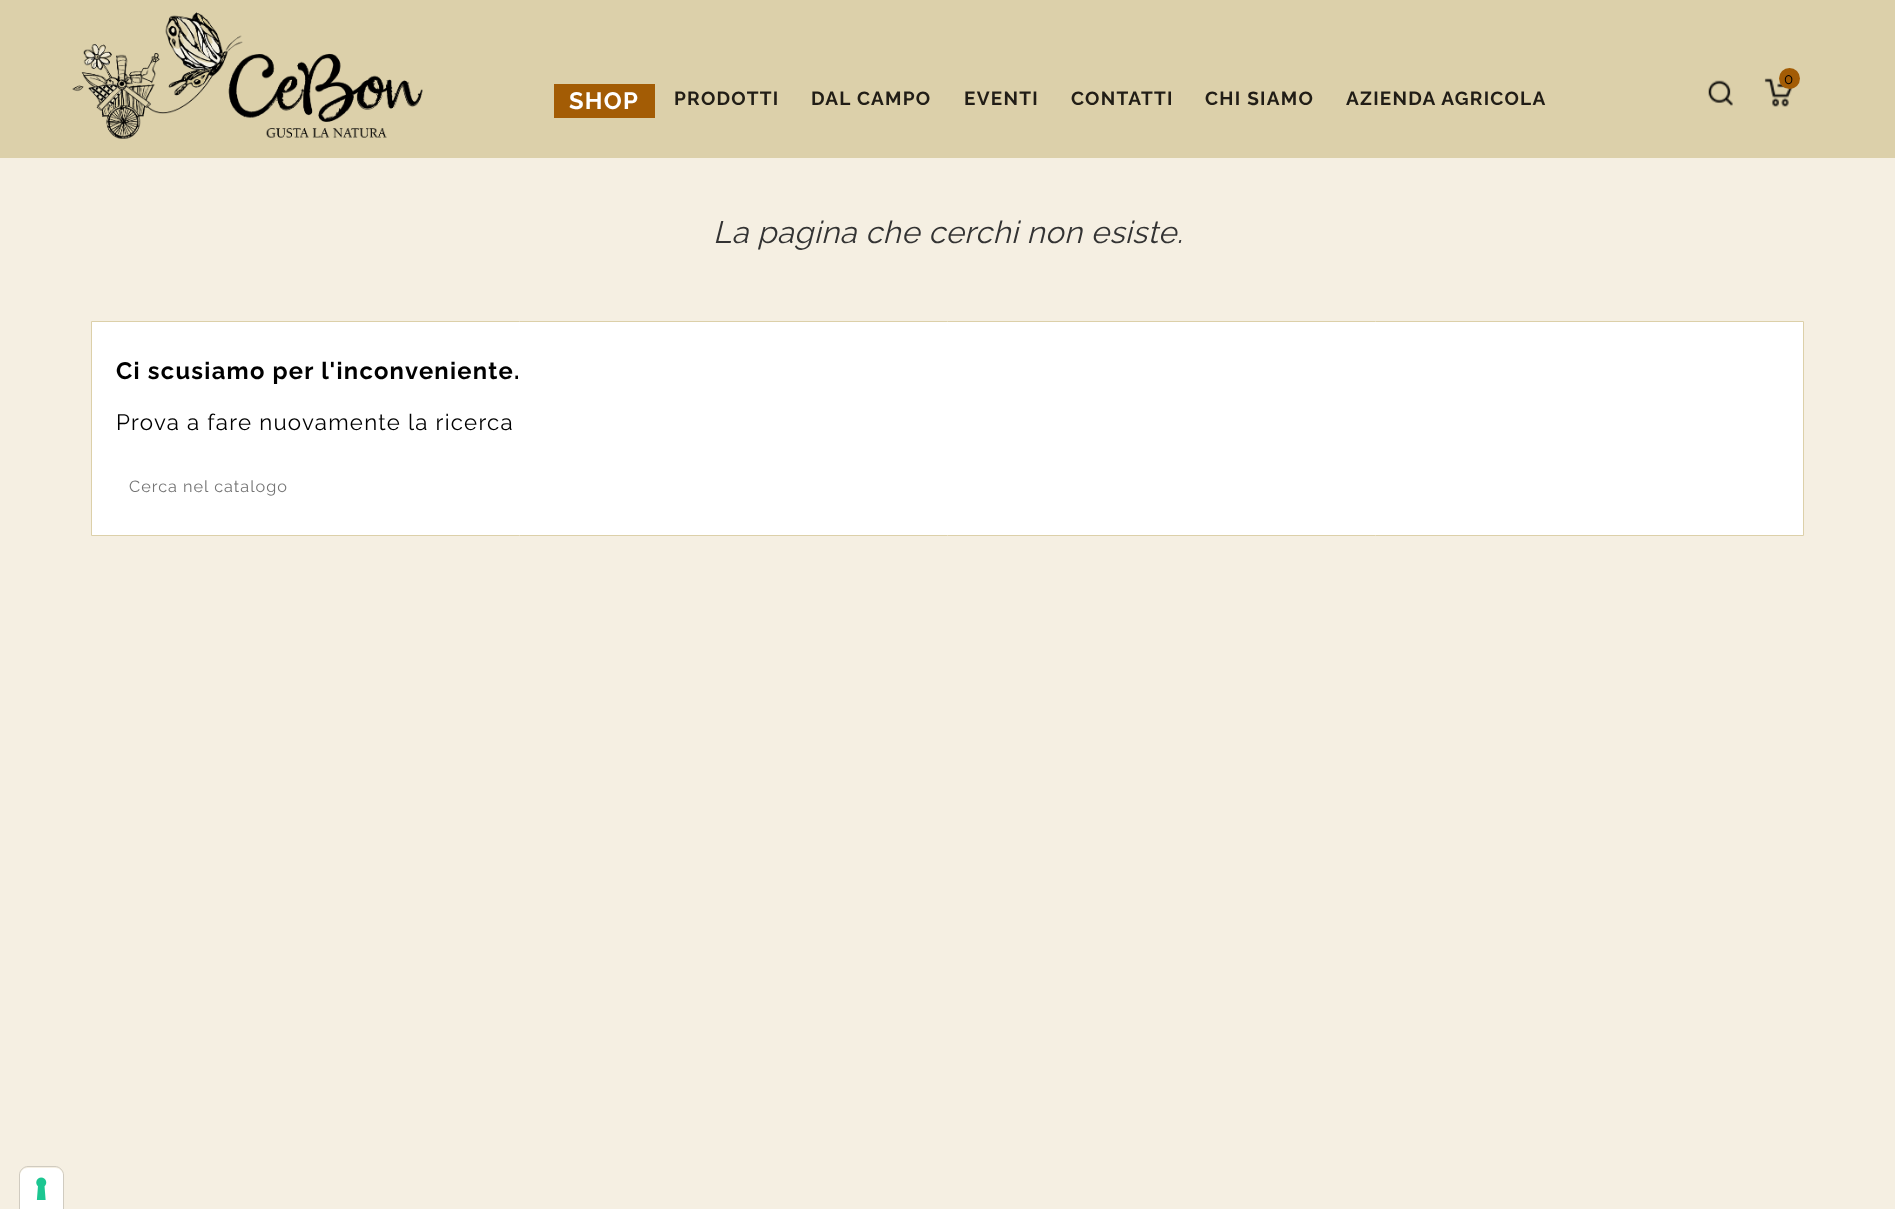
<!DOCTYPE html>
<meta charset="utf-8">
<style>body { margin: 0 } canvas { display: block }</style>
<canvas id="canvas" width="1895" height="1209"></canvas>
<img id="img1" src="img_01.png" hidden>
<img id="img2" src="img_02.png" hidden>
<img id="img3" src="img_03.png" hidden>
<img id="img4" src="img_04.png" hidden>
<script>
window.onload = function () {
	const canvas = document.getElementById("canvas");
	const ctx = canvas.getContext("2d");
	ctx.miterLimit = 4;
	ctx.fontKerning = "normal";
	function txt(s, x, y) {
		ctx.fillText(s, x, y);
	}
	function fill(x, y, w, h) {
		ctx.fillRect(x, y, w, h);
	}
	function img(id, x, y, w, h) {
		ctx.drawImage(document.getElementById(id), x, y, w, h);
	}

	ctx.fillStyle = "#F5EFE2";
	fill(0, 0, 1895, 1209);
	ctx.fillStyle = "#DCD0AA";
	fill(0, 0, 1895, 158);
	img("img1", 72, 12, 351, 127);
	img("img2", 1708, 80, 25, 26);
	img("img3", 1764, 78, 29, 29);
	ctx.fillStyle = "#A35C05";
	ctx.beginPath();
	ctx.arc(1789.5, 78.5, 10.5, 0, Math.PI * 2);
	ctx.fill();
	fill(554, 84, 101, 34);
	ctx.fillStyle = "#FFFFFF";
	ctx.beginPath();
	ctx.rect(91.5, 321.5, 1712, 214);
	ctx.fill();
	ctx.strokeStyle = "#DCD0A9";
	ctx.stroke();
	ctx.beginPath();
	ctx.moveTo(28, 1166.5);
	ctx.lineTo(55, 1166.5);
	ctx.bezierCurveTo(59.5, 1166.5, 63.5, 1170.5, 63.5, 1175);
	ctx.lineTo(63.5, 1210.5);
	ctx.lineTo(19.5, 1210.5);
	ctx.lineTo(19.5, 1175);
	ctx.bezierCurveTo(19.5, 1170.5, 23.5, 1166.5, 28, 1166.5);
	ctx.closePath();
	ctx.strokeStyle = "#D0CBC0";
	ctx.stroke();
	ctx.beginPath();
	ctx.moveTo(28, 1168);
	ctx.lineTo(55, 1168);
	ctx.bezierCurveTo(59.5, 1168, 63, 1171.5, 63, 1176);
	ctx.lineTo(63, 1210);
	ctx.lineTo(20, 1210);
	ctx.lineTo(20, 1176);
	ctx.bezierCurveTo(20, 1171.5, 23.5, 1168, 28, 1168);
	ctx.closePath();
	ctx.fill();
	img("img4", 36, 1177, 11, 23);
	ctx.letterSpacing = "1.25px";
	ctx.font = "15px Raleway";
	ctx.fillStyle = "#000000";
	txt("0", 1784, 84);
	ctx.font = "bold 23.75px Raleway";
	ctx.fillStyle = "#FFFFFF";
	txt("SHOP", 569, 109);
	ctx.font = "bold 19px Raleway";
	ctx.fillStyle = "#211D16";
	txt("PRODOTTI", 674, 105);
	txt("DAL CAMPO", 811, 105);
	txt("EVENTI", 964, 105);
	txt("CONTATTI", 1071, 105);
	txt("CHI SIAMO", 1205, 105);
	txt("AZIENDA AGRICOLA", 1346, 105);
	ctx.letterSpacing = "0.5px";
	ctx.font = "italic 30.9px Raleway";
	ctx.fillStyle = "#333333";
	txt("La pagina che cerchi non esiste.", 713, 243);
	ctx.letterSpacing = "1.25px";
	ctx.font = "bold 23.75px Raleway";
	ctx.fillStyle = "#000000";
	txt("Ci scusiamo per l'inconveniente.", 116, 379);
	ctx.font = "22.25px Raleway";
	txt("Prova a fare nuovamente la ricerca", 116, 430);
	ctx.letterSpacing = "1px";
	ctx.font = "16.25px Raleway";
	ctx.fillStyle = "#757575";
	txt("Cerca nel catalogo", 129, 492);
};
</script>
